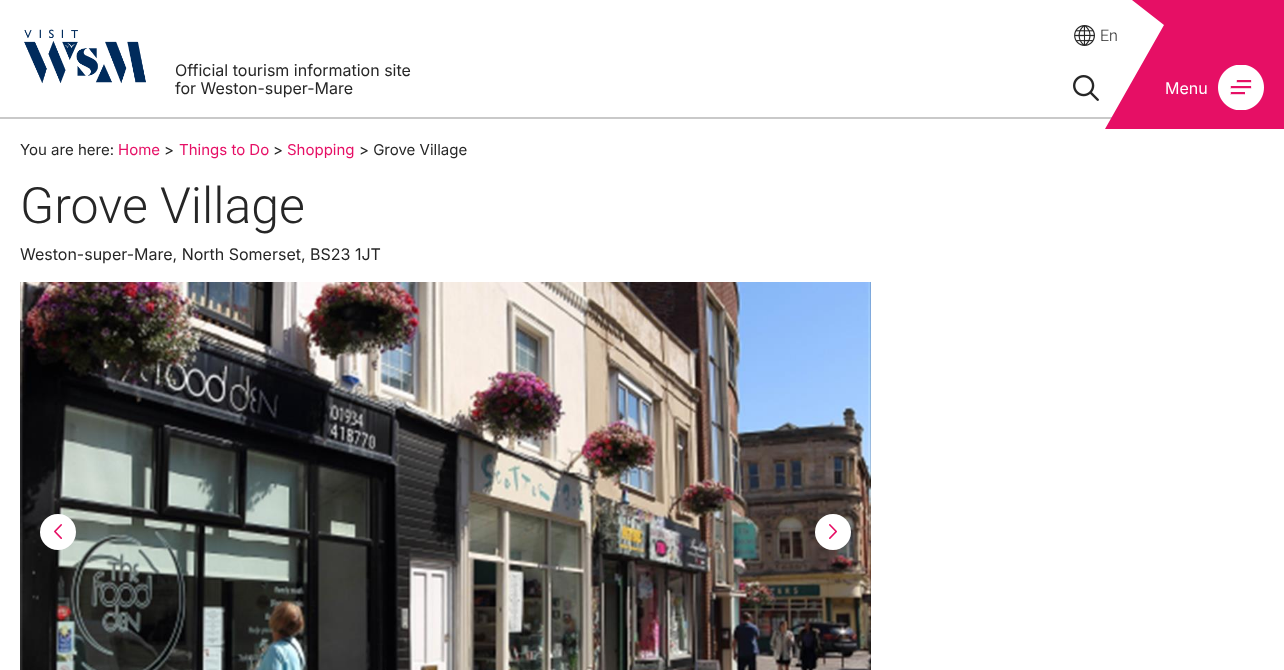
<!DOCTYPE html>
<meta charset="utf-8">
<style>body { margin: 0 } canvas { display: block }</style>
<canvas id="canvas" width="1284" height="670"></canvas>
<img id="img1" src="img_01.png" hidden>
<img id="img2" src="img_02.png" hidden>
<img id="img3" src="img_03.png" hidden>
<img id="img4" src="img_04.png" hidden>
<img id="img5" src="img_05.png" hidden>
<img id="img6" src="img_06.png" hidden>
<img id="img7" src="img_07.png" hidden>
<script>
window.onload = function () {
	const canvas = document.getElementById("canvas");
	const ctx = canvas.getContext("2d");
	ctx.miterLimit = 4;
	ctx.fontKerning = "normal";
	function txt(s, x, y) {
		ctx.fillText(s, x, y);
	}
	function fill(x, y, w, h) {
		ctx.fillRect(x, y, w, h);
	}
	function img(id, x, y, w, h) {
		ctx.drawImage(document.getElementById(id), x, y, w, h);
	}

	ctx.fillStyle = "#FFFFFF";
	fill(0, 0, 1284, 670);
	ctx.fillStyle = "#C9C9C9";
	fill(0, 117, 1112, 2);
	img("img1", 1074, 25, 21, 21);
	img("img2", 24, 29, 122, 55);
	img("img3", 1073, 75, 26, 26);
	ctx.fillStyle = "#E60F65";
	ctx.beginPath();
	ctx.moveTo(1132, 0);
	ctx.lineTo(1164, 25);
	ctx.lineTo(1105, 129);
	ctx.lineTo(1284, 129);
	ctx.lineTo(1284, 0);
	ctx.closePath();
	ctx.fill();
	img("img4", 1218, 65, 46, 45);
	img("img5", 20, 282, 851, 388);
	ctx.fillStyle = "#FFFFFF";
	ctx.beginPath();
	ctx.arc(58, 532, 18, 0, Math.PI * 2);
	ctx.fill();
	img("img6", 54, 524, 8, 15);
	ctx.beginPath();
	ctx.arc(833, 532, 18, 0, Math.PI * 2);
	ctx.fill();
	img("img7", 829, 524, 8, 15);
	ctx.font = "300 16px Roboto";
	ctx.fillStyle = "#262626";
	txt("En", 1100, 41);
	ctx.font = "16px Inter";
	txt("Official tourism information site", 175, 76);
	txt("for Weston-super-Mare", 175, 94);
	ctx.fillStyle = "#FFFFFF";
	txt("Menu", 1165, 94);
	ctx.font = "15px Inter";
	ctx.fillStyle = "#262626";
	txt("You are here:", 20, 155);
	ctx.fillStyle = "#E60F65";
	txt("Home", 118, 155);
	ctx.fillStyle = "#262626";
	txt(">", 164, 155);
	ctx.fillStyle = "#E60F65";
	txt("Things to Do", 179, 155);
	ctx.fillStyle = "#262626";
	txt(">", 273, 155);
	ctx.fillStyle = "#E60F65";
	txt("Shopping", 287, 155);
	ctx.fillStyle = "#262626";
	txt("> Grove Village", 359, 155);
	ctx.font = "300 50px Roboto";
	txt("Grove Village", 20, 223);
	ctx.font = "16px Inter";
	txt("Weston-super-Mare, North Somerset, BS23 1JT", 20, 260);
};
</script>
